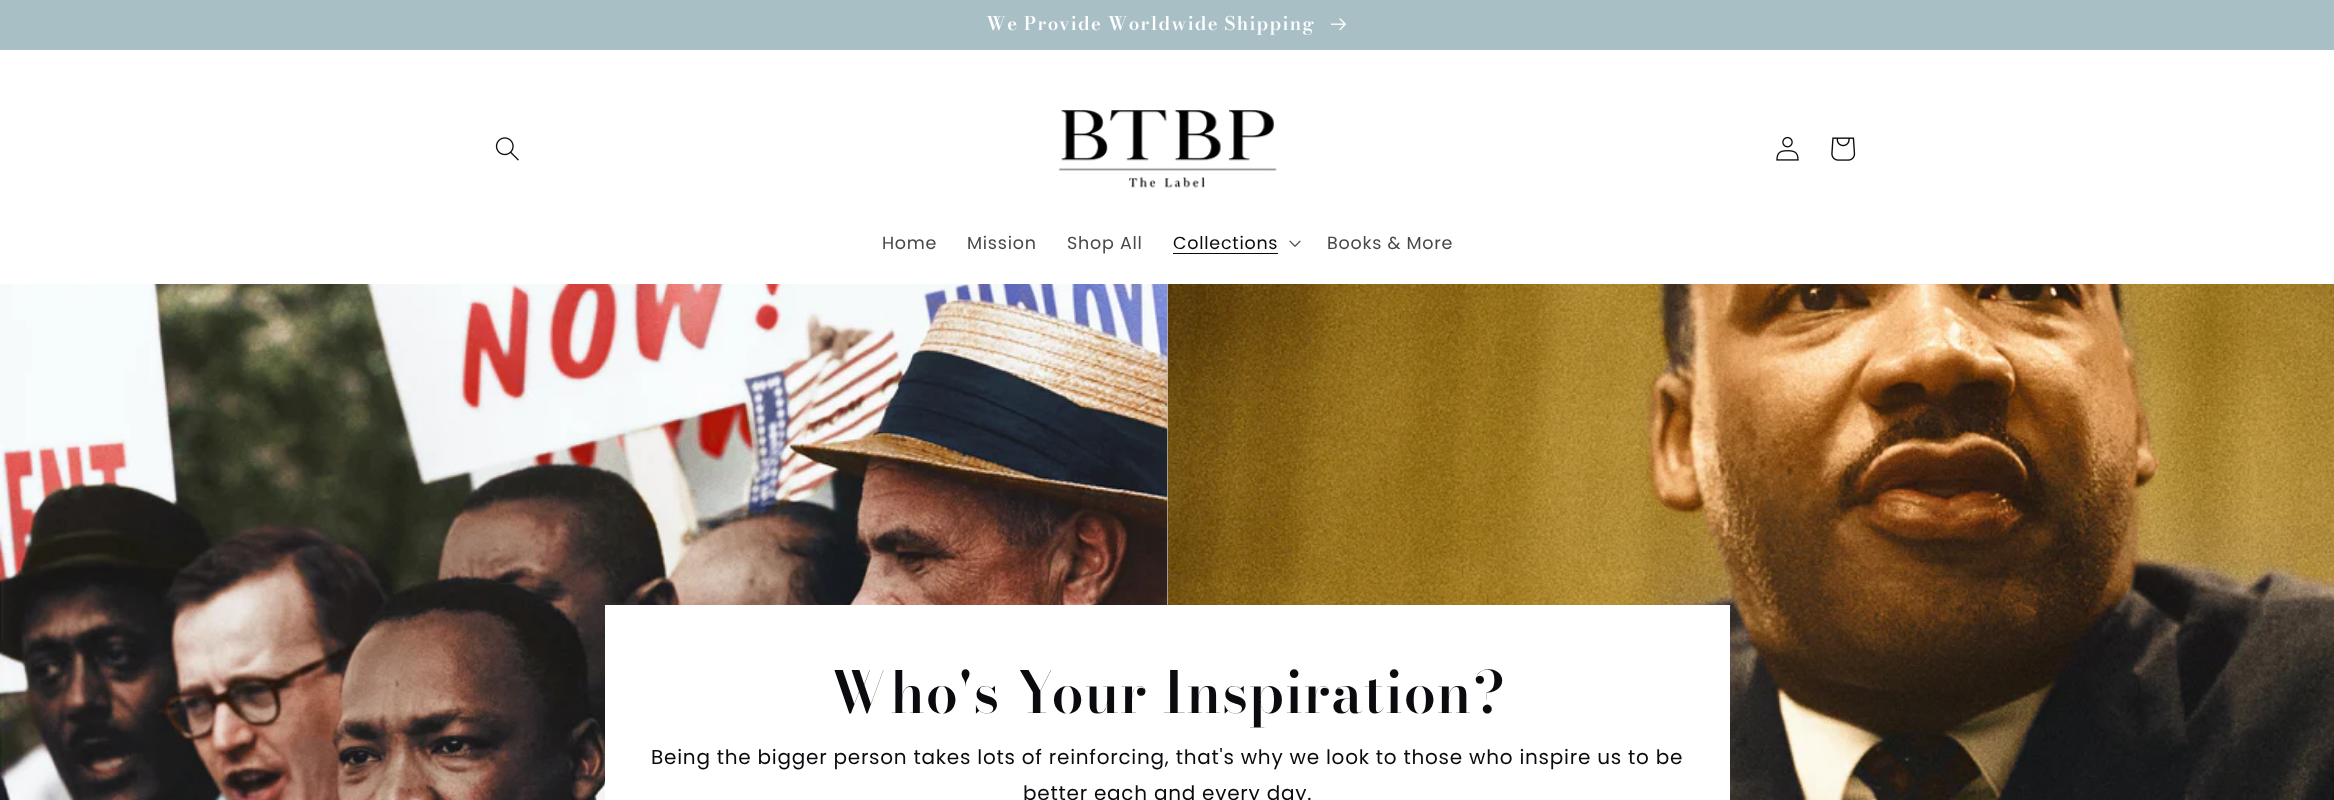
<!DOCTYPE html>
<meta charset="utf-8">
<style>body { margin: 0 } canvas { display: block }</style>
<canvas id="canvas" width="2334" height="800"></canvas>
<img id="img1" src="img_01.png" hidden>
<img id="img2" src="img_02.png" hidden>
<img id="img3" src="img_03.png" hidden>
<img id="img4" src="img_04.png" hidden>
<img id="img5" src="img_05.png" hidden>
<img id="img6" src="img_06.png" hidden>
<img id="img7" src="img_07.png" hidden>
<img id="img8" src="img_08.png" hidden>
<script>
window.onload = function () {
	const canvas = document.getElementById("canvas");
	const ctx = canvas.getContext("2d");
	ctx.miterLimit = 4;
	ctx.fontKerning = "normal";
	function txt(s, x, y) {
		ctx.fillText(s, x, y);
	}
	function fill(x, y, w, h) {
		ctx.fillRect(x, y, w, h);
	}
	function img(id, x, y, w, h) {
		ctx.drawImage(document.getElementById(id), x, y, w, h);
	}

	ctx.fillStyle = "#E7E7E8";
	fill(0, 0, 2334, 800);
	ctx.fillStyle = "#ABC0C7";
	fill(0, 49, 2334, 1);
	ctx.fillStyle = "#A9BFC6";
	fill(0, 0, 2334, 49);
	img("img1", 1331, 18, 15, 13);
	ctx.fillStyle = "#FFFFFF";
	fill(0, 50, 2334, 234);
	img("img2", 495, 137, 24, 24);
	img("img3", 1058, 110, 219, 78);
	img("img4", 1776, 136, 23, 25);
	img("img5", 1831, 137, 25, 24);
	ctx.fillStyle = "#090B0E";
	fill(1173, 253, 105, 1);
	img("img6", 1289, 240, 12, 7);
	img("img7", 0, 284, 1168, 516);
	img("img8", 1167, 284, 1167, 516);
	ctx.fillStyle = "#FFFFFF";
	fill(605, 605, 1125, 195);
	ctx.letterSpacing = "1.25px";
	ctx.wordSpacing = "-0.5px";
	ctx.font = "600 18.7px 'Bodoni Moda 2'";
	txt("We Provide Worldwide Shipping", 986, 30);
	ctx.letterSpacing = "0.75px";
	ctx.wordSpacing = "0px";
	ctx.font = "17.5px Poppins";
	ctx.fillStyle = "#47484A";
	txt("Home", 882, 249);
	txt("Mission", 967, 249);
	txt("Shop All", 1067, 249);
	ctx.fillStyle = "#090B0E";
	txt("Collections", 1173, 249);
	ctx.fillStyle = "#47484A";
	txt("Books & More", 1327, 249);
	ctx.letterSpacing = "0.9px";
	ctx.font = "600 57.5px Bodoni Moda";
	ctx.fillStyle = "#090B0E";
	txt("Who's Your Inspiration?", 829, 713);
	ctx.letterSpacing = "0.75px";
	ctx.font = "20px Poppins";
	txt("Being the bigger person takes lots of reinforcing, that's why we look to those who inspire us to be", 651, 764);
	txt("better each and every day.", 1023, 800);
};
</script>
